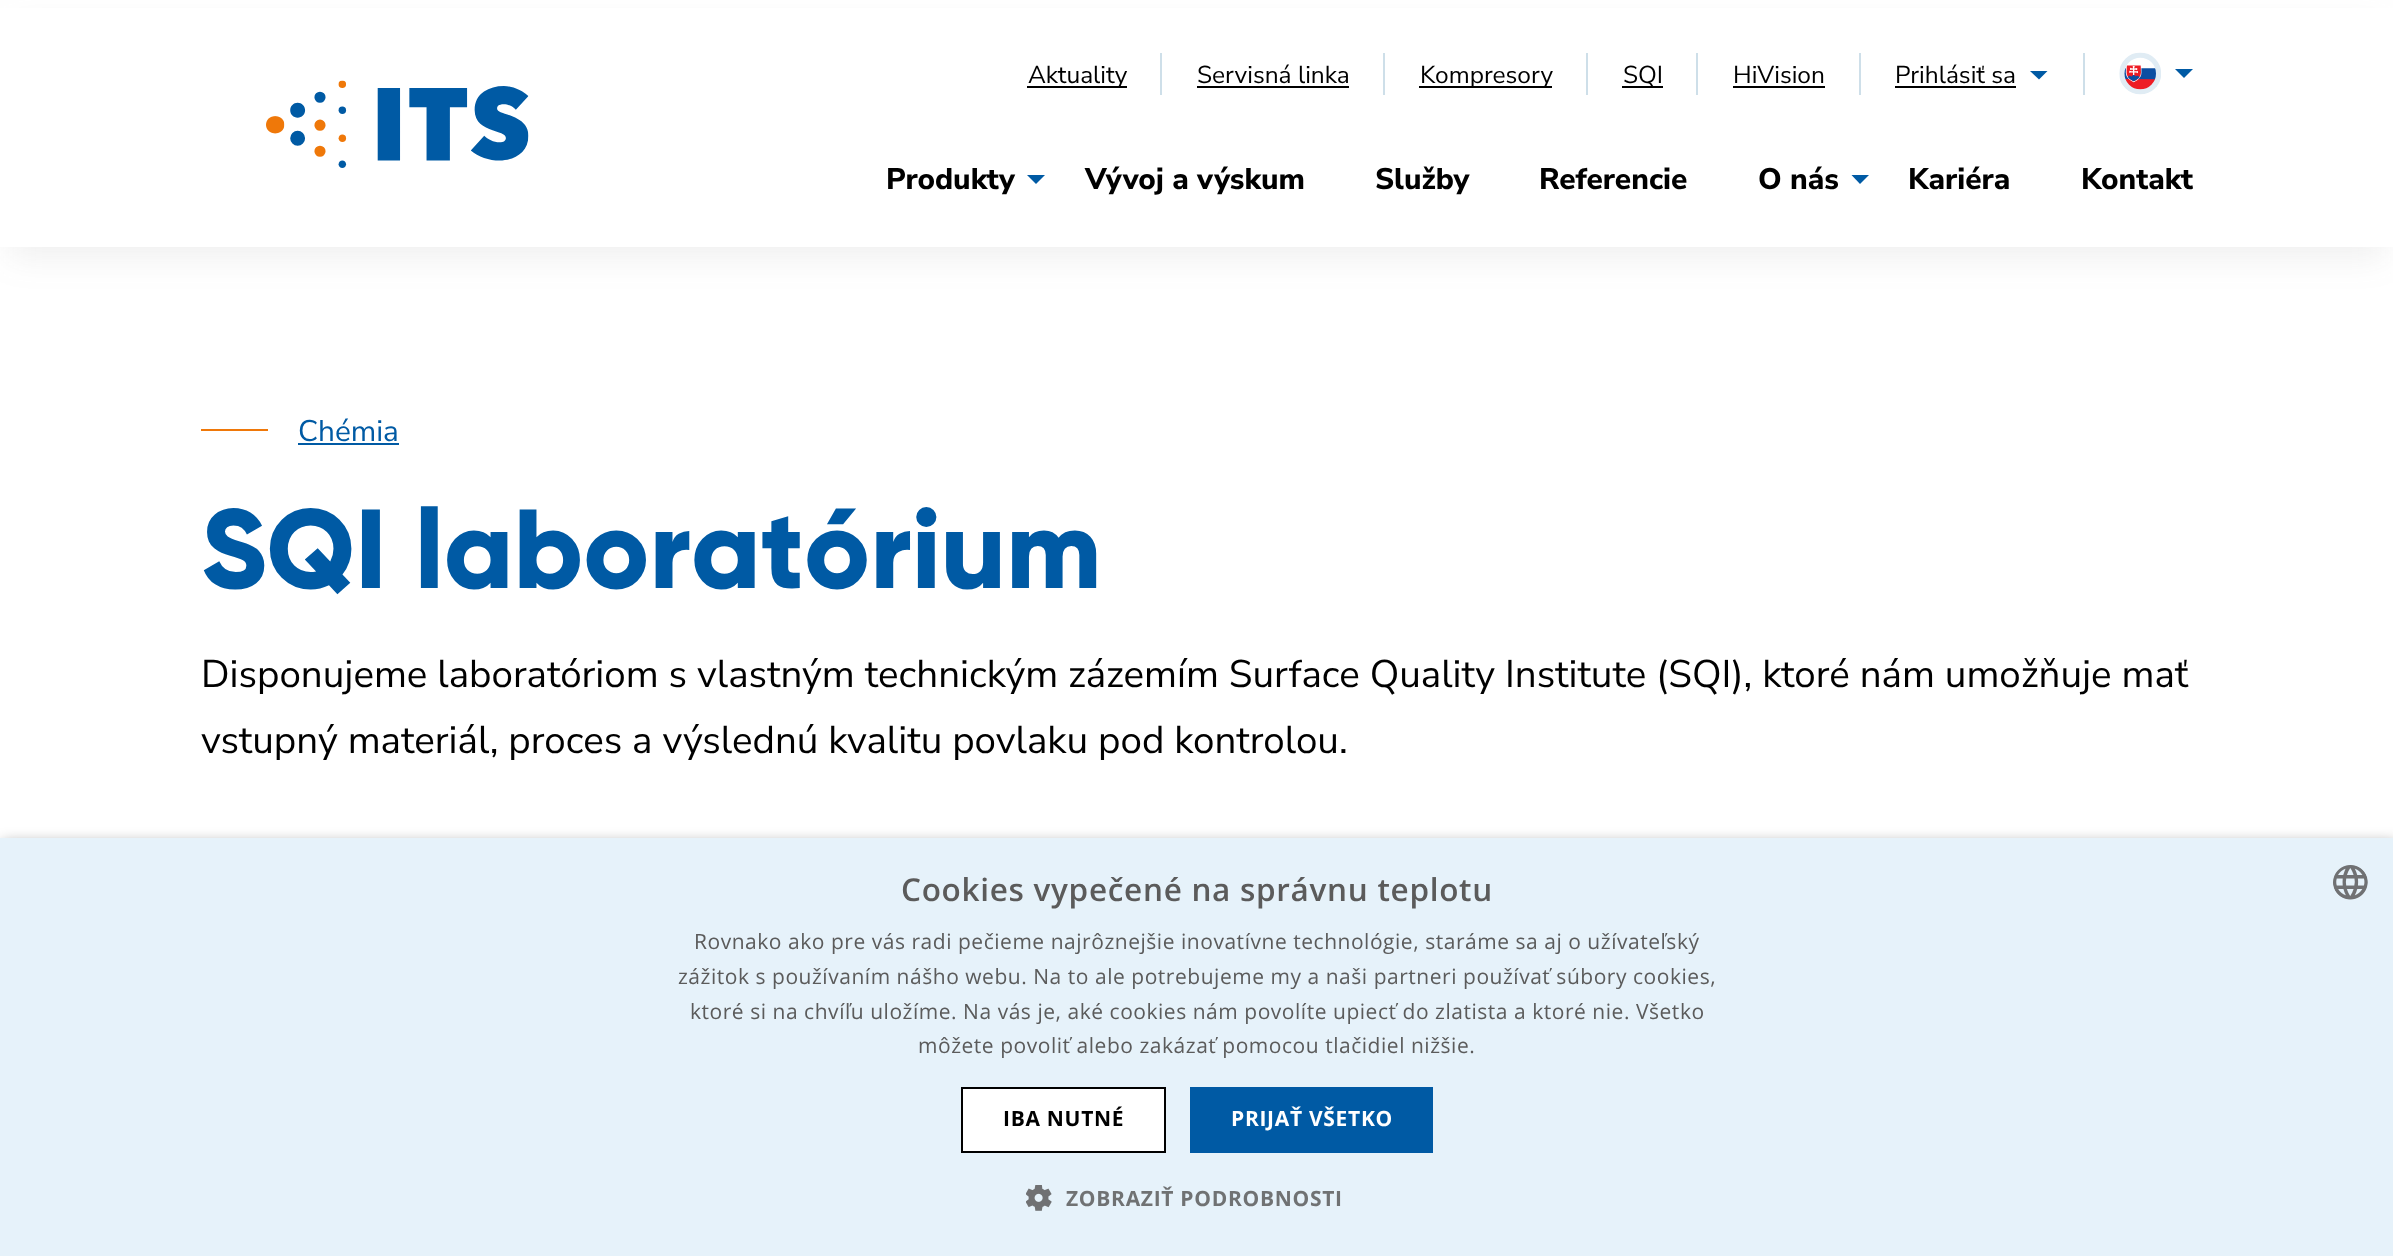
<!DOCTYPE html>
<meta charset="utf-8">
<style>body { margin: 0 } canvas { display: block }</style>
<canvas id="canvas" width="2393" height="1256"></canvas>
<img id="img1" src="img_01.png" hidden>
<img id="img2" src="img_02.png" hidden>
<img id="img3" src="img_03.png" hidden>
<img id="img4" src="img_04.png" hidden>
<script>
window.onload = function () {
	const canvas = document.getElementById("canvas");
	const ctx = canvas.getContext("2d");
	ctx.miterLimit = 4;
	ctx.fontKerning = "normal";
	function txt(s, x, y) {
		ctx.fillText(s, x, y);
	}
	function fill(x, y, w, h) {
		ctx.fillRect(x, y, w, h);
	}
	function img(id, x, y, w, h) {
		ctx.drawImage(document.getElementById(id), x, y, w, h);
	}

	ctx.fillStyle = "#FFFFFF";
	fill(0, 0, 2393, 1256);
	ctx.fillStyle = "rgba(87, 87, 92, 0.1)";
	ctx.filter = "blur(17.5px)";
	ctx.beginPath();
	ctx.rect(9, 26, 2376, 230);
	ctx.fill();
	ctx.filter = "none";
	ctx.fillStyle = "#FFFFFF";
	fill(0, 8, 2393, 239);
	img("img1", 266, 80, 263, 88);
	ctx.fillStyle = "#000000";
	fill(1027, 86, 100, 2);
	ctx.fillStyle = "#CEDFE9";
	fill(1160, 53, 2, 42);
	ctx.fillStyle = "#000000";
	fill(1197, 86, 152, 2);
	ctx.fillStyle = "#CEDFE9";
	fill(1383, 53, 2, 42);
	ctx.fillStyle = "#000000";
	fill(1419, 86, 133, 2);
	ctx.fillStyle = "#CEDFE9";
	fill(1586, 53, 2, 42);
	ctx.fillStyle = "#000000";
	fill(1622, 86, 41, 2);
	ctx.fillStyle = "#CEDFE9";
	fill(1696, 53, 2, 42);
	ctx.fillStyle = "#000000";
	fill(1733, 86, 92, 2);
	ctx.fillStyle = "#CEDFE9";
	fill(1859, 53, 2, 42);
	ctx.fillStyle = "#000000";
	fill(1895, 86, 121, 2);
	ctx.fillStyle = "#005AA4";
	ctx.beginPath();
	ctx.moveTo(2030, 71);
	ctx.lineTo(2047.5, 71);
	ctx.lineTo(2039, 79.5);
	ctx.closePath();
	ctx.fill();
	ctx.fillStyle = "#CEDFE9";
	fill(2083, 53, 2, 42);
	img("img2", 2119, 52, 42, 43);
	ctx.fillStyle = "#005AA4";
	ctx.beginPath();
	ctx.moveTo(2175, 69);
	ctx.lineTo(2193, 69);
	ctx.lineTo(2184, 78);
	ctx.closePath();
	ctx.fill();
	ctx.beginPath();
	ctx.moveTo(1027, 175);
	ctx.lineTo(1045, 175);
	ctx.lineTo(1036, 184);
	ctx.closePath();
	ctx.fill();
	ctx.beginPath();
	ctx.moveTo(1851.5, 175);
	ctx.lineTo(1869, 175);
	ctx.lineTo(1860, 184);
	ctx.closePath();
	ctx.fill();
	ctx.fillStyle = "#EF7809";
	fill(201, 429, 67, 2);
	ctx.fillStyle = "#005AA4";
	fill(298, 443, 101, 2);
	ctx.fillStyle = "rgba(0, 0, 0, 0.35)";
	ctx.filter = "blur(7px)";
	ctx.beginPath();
	ctx.rect(2, 842, 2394, 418);
	ctx.fill();
	ctx.filter = "none";
	ctx.fillStyle = "#E6F2FA";
	fill(0, 838, 2393, 418);
	img("img3", 2333, 865, 35, 35);
	ctx.fillStyle = "#FFFFFF";
	ctx.beginPath();
	ctx.rect(962, 1088, 203, 64);
	ctx.fill();
	ctx.strokeStyle = "#000000";
	ctx.lineWidth = 2;
	ctx.stroke();
	ctx.fillStyle = "#005AA4";
	fill(1190, 1087, 243, 66);
	img("img4", 1026, 1185, 26, 26);
	ctx.font = "24.5px Nunito Sans";
	ctx.fillStyle = "#000000";
	txt("Aktuality", 1028, 83);
	txt("Servisná linka", 1197, 83);
	txt("Kompresory", 1420, 83);
	txt("SQI", 1623, 83);
	txt("HiVision", 1733, 83);
	txt("Prihlásiť sa", 1895, 83);
	ctx.font = "800 29.75px Nunito Sans";
	txt("Produkty", 886, 189);
	txt("Vývoj a výskum", 1085, 189);
	txt("Služby", 1375, 189);
	txt("Referencie", 1539, 189);
	txt("O nás", 1758, 189);
	txt("Kariéra", 1908, 189);
	txt("Kontakt", 2081, 189);
	ctx.font = "29.75px Nunito Sans";
	ctx.fillStyle = "#005AA4";
	txt("Chémia", 298, 441);
	ctx.font = "112px Gilroy";
	txt("SQI laboratórium", 201, 588);
	ctx.font = "38.5px Nunito Sans";
	ctx.fillStyle = "#000000";
	txt("Disponujeme laboratóriom s vlastným technickým zázemím Surface Quality Institute (SQI), ktoré nám umožňuje mať", 201, 687);
	txt("vstupný materiál, proces a výslednú kvalitu povlaku pod kontrolou.", 201, 753);
	ctx.letterSpacing = "0.7px";
	ctx.font = "600 31.5px Open Sans";
	ctx.fillStyle = "#5B5B5B";
	txt("Cookies vypečené na správnu teplotu", 901, 901);
	ctx.letterSpacing = "0.53px";
	ctx.font = "21px Open Sans";
	txt("Rovnako ako pre vás radi pečieme najrôznejšie inovatívne technológie, staráme sa aj o užívateľský", 694, 949);
	txt("zážitok s používaním nášho webu. Na to ale potrebujeme my a naši partneri používať súbory cookies,", 678, 984);
	txt("ktoré si na chvíľu uložíme. Na vás je, aké cookies nám povolíte upiecť do zlatista a ktoré nie. Všetko", 690, 1019);
	txt("môžete povoliť alebo zakázať pomocou tlačidiel nižšie.", 918, 1053);
	ctx.letterSpacing = "0.7px";
	ctx.font = "bold 21px Open Sans";
	ctx.fillStyle = "#000000";
	txt("IBA NUTNÉ", 1003, 1126);
	ctx.fillStyle = "#FFFFFF";
	txt("PRIJAŤ VŠETKO", 1231, 1126);
	ctx.fillStyle = "#707273";
	txt("ZOBRAZIŤ PODROBNOSTI", 1066, 1206);
};
</script>
